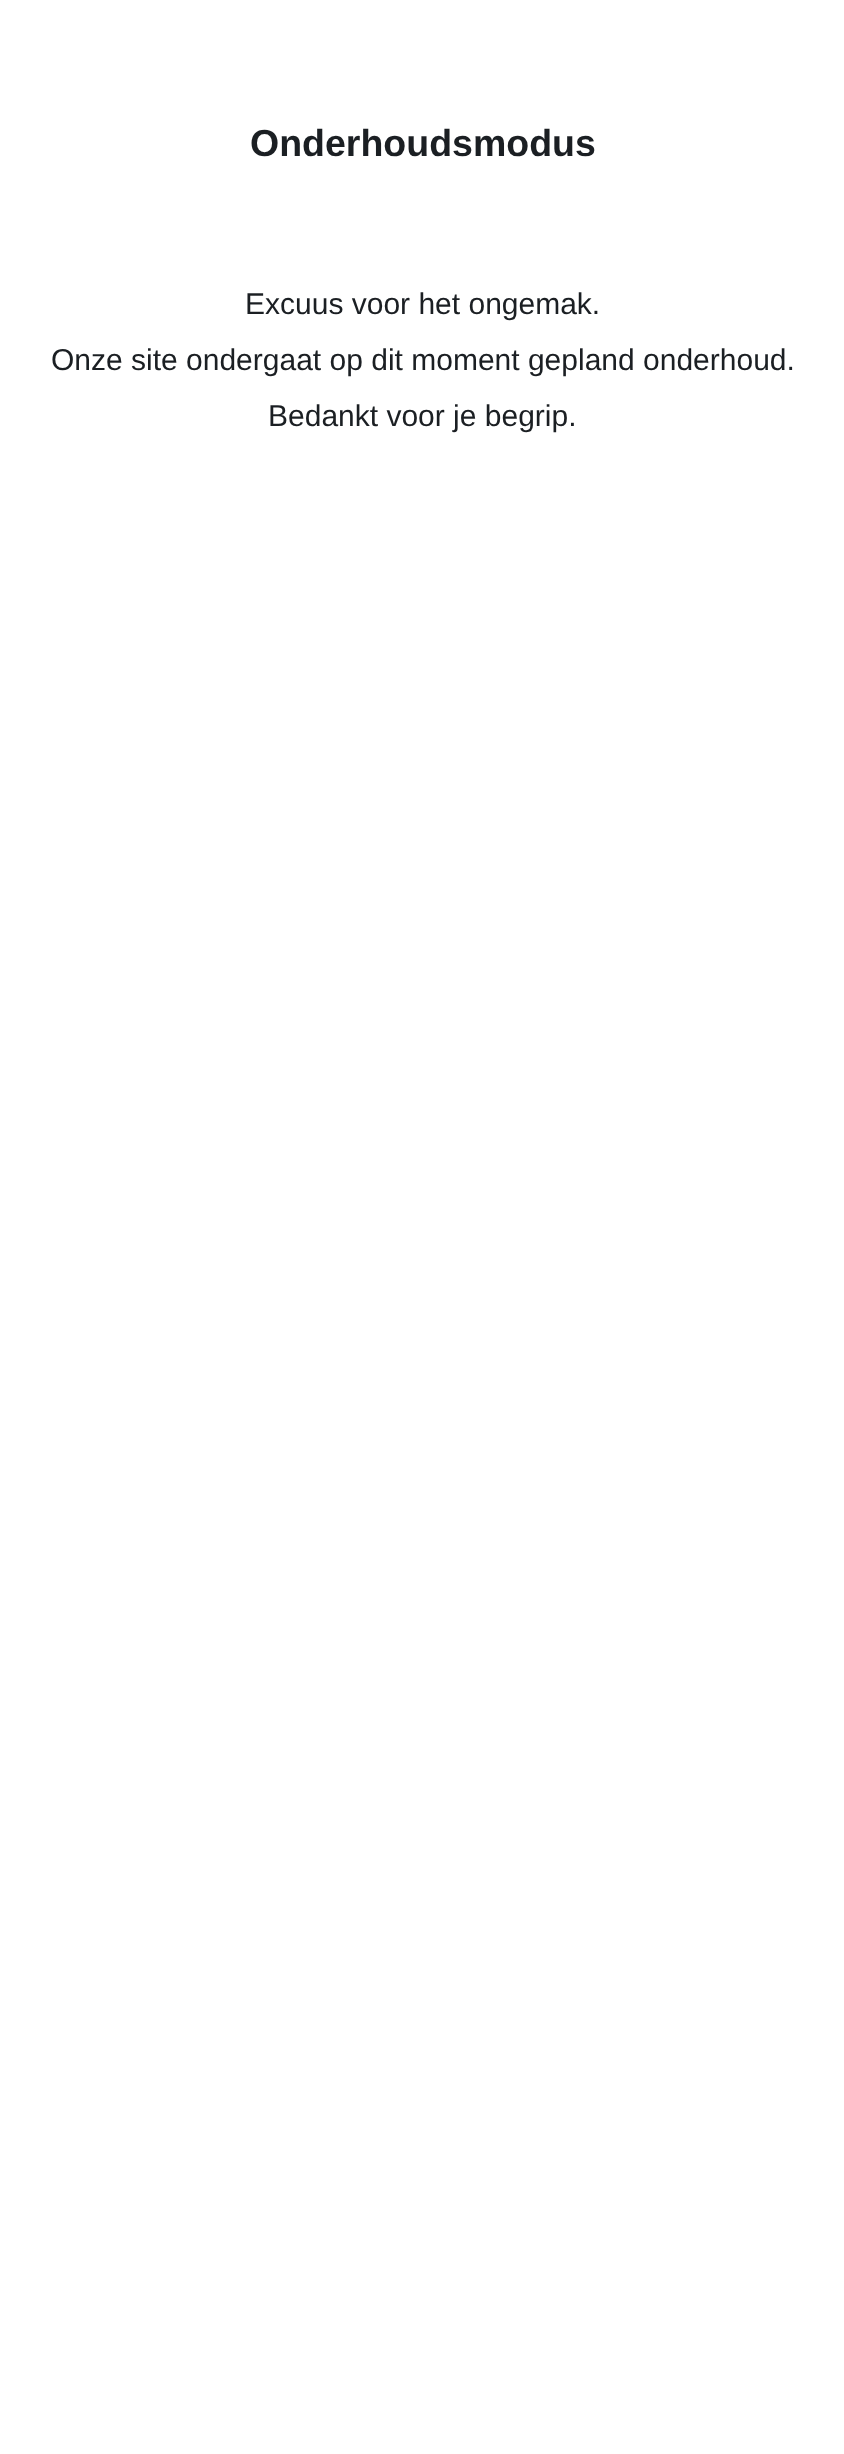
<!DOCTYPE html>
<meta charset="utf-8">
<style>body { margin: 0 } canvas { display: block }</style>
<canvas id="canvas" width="844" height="2454"></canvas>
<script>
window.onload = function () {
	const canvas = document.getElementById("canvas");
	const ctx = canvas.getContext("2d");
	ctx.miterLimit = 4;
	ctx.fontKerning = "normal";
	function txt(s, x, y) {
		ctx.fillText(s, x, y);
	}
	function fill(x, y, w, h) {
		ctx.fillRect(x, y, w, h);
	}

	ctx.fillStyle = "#FFFFFF";
	fill(0, 0, 844, 2454);
	ctx.font = "bold 37.5px Liberation Sans";
	ctx.fillStyle = "#1B1F23";
	txt("Onderhoudsmodus", 250, 156);
	ctx.font = "30px Liberation Sans";
	txt("Excuus voor het ongemak.", 245, 314);
	txt("Onze site ondergaat op dit moment gepland onderhoud.", 51, 370);
	txt("Bedankt voor je begrip.", 268, 426);
};
</script>
